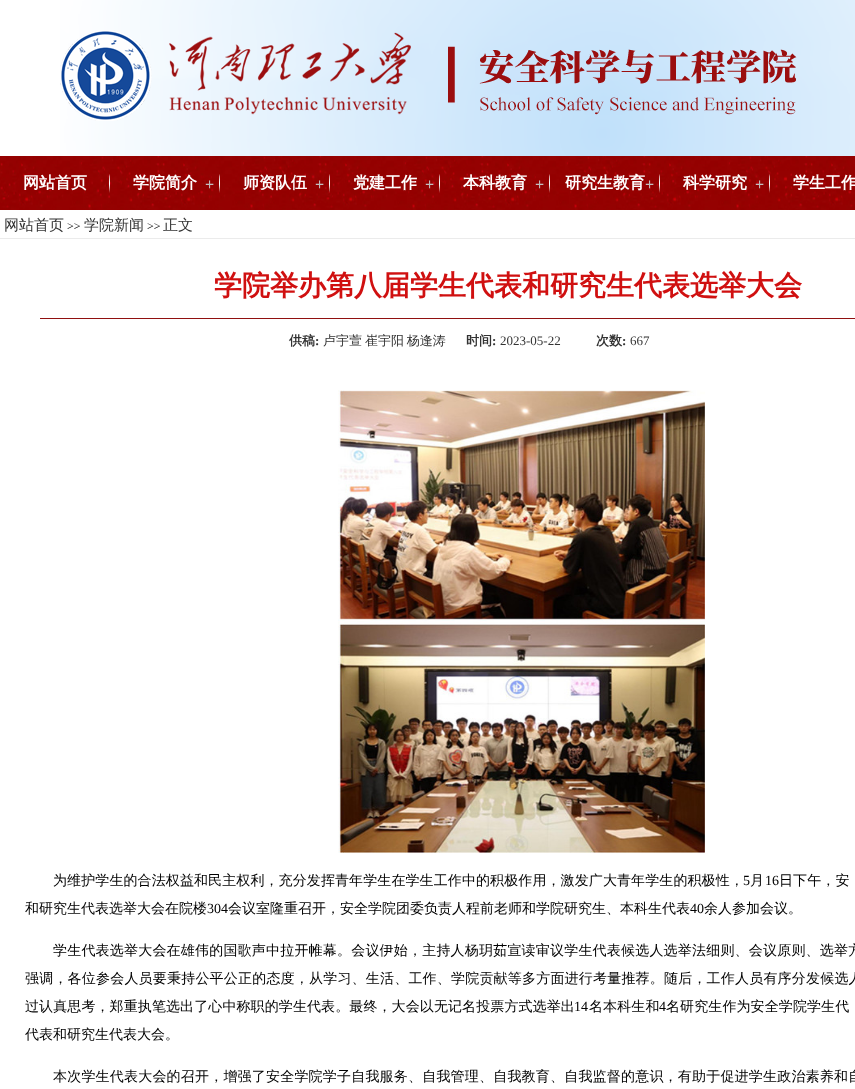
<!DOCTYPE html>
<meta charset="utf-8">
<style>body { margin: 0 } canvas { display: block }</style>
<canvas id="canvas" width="855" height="1089"></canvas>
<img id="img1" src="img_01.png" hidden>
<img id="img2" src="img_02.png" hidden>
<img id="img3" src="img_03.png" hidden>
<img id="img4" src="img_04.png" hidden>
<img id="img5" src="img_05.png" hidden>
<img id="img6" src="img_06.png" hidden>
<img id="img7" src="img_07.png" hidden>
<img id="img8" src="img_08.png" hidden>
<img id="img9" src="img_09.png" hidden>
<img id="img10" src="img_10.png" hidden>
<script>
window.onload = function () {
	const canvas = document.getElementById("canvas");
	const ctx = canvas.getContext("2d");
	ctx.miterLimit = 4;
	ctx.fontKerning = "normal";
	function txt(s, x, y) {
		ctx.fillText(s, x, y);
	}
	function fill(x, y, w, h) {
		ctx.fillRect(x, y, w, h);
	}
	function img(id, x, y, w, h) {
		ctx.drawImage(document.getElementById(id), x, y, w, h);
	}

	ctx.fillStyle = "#FFFFFF";
	fill(0, 0, 855, 1089);
	img("img1", 60, 0, 795, 156);
	img("img2", 0, 156, 855, 54);
	img("img3", 109, 174, 1, 19);
	img("img4", 219, 174, 1, 19);
	img("img5", 329, 174, 1, 19);
	img("img6", 439, 174, 1, 19);
	img("img7", 549, 174, 1, 19);
	img("img8", 659, 174, 1, 19);
	img("img9", 769, 174, 1, 19);
	ctx.fillStyle = "#EBEBEB";
	fill(0, 238, 855, 1);
	ctx.fillStyle = "#901010";
	fill(40, 318, 815, 1);
	img("img10", 338, 390, 367, 463);
	ctx.font = "bold 16px WenQuanYi Zen Hei";
	ctx.fillStyle = "#FFFFFF";
	txt("网站首页", 23, 188);
	txt("学院简介", 133, 188);
	ctx.font = "16px Open Sans";
	ctx.fillStyle = "#C0C0C0";
	txt("+", 205, 190);
	ctx.font = "bold 16px WenQuanYi Zen Hei";
	ctx.fillStyle = "#FFFFFF";
	txt("师资队伍", 243, 188);
	ctx.font = "16px Open Sans";
	ctx.fillStyle = "#C0C0C0";
	txt("+", 315, 190);
	ctx.font = "bold 16px WenQuanYi Zen Hei";
	ctx.fillStyle = "#FFFFFF";
	txt("党建工作", 353, 188);
	ctx.font = "16px Open Sans";
	ctx.fillStyle = "#C0C0C0";
	txt("+", 425, 190);
	ctx.font = "bold 16px WenQuanYi Zen Hei";
	ctx.fillStyle = "#FFFFFF";
	txt("本科教育", 463, 188);
	ctx.font = "16px Open Sans";
	ctx.fillStyle = "#C0C0C0";
	txt("+", 535, 190);
	ctx.font = "bold 16px WenQuanYi Zen Hei";
	ctx.fillStyle = "#FFFFFF";
	txt("研究生教育", 565, 188);
	ctx.font = "16px Open Sans";
	ctx.fillStyle = "#C0C0C0";
	txt("+", 645, 190);
	ctx.font = "bold 16px WenQuanYi Zen Hei";
	ctx.fillStyle = "#FFFFFF";
	txt("科学研究", 683, 188);
	ctx.font = "16px Open Sans";
	ctx.fillStyle = "#C0C0C0";
	txt("+", 755, 190);
	ctx.font = "bold 16px WenQuanYi Zen Hei";
	ctx.fillStyle = "#FFFFFF";
	txt("学生工作", 793, 188);
	ctx.font = "500 15px WenQuanYi Zen Hei";
	ctx.fillStyle = "#333333";
	txt("网站首页", 4, 230);
	ctx.font = "12px Liberation Serif";
	ctx.fillStyle = "#000000";
	txt(">>", 67, 230);
	ctx.font = "500 15px WenQuanYi Zen Hei";
	ctx.fillStyle = "#333333";
	txt("学院新闻", 84, 230);
	ctx.font = "12px Liberation Serif";
	ctx.fillStyle = "#000000";
	txt(">>", 147, 230);
	ctx.font = "500 15px WenQuanYi Zen Hei";
	ctx.fillStyle = "#333333";
	txt("正文", 163, 230);
	ctx.font = "bold 28px WenQuanYi Zen Hei";
	ctx.fillStyle = "#D01010";
	txt("学院举办第八届学生代表和研究生代表选举大会", 214, 295);
	ctx.font = "bold 13px WenQuanYi Zen Hei";
	ctx.fillStyle = "#333333";
	txt("供稿", 289, 345);
	ctx.font = "bold 13px Liberation Serif";
	txt(":", 315, 345);
	ctx.wordSpacing = "-1px";
	ctx.font = "500 13px WenQuanYi Zen Hei";
	txt("卢宇萱 崔宇阳 杨逢涛", 323, 345);
	ctx.wordSpacing = "0px";
	ctx.font = "bold 13px WenQuanYi Zen Hei";
	txt("时间", 466, 345);
	ctx.font = "bold 13px Liberation Serif";
	txt(":", 492, 345);
	ctx.font = "13px Liberation Serif";
	txt("2023-05-22", 500, 345);
	ctx.font = "bold 13px WenQuanYi Zen Hei";
	txt("次数", 596, 345);
	ctx.font = "bold 13px Liberation Serif";
	txt(":", 622, 345);
	ctx.font = "13px Liberation Serif";
	txt("667", 630, 345);
	ctx.letterSpacing = "0.1px";
	ctx.font = "500 14px WenQuanYi Zen Hei";
	ctx.fillStyle = "#000000";
	txt("为维护学生的合法权益和民主权利，充分发挥青年学生在学生工作中的积极作用，激发广大青年学生的积极性，", 53, 885);
	ctx.font = "14px Liberation Serif";
	txt("5", 743, 885);
	ctx.font = "500 14px WenQuanYi Zen Hei";
	txt("月", 750, 885);
	ctx.font = "14px Liberation Serif";
	txt("16", 765, 885);
	ctx.font = "500 14px WenQuanYi Zen Hei";
	txt("日下午，安", 779, 885);
	ctx.letterSpacing = "0px";
	txt("和研究生代表选举大会在院楼", 25, 913);
	ctx.font = "14px Liberation Serif";
	txt("304", 207, 913);
	ctx.font = "500 14px WenQuanYi Zen Hei";
	txt("会议室隆重召开，安全学院团委负责人程前老师和学院研究生、本科生代表", 228, 913);
	ctx.font = "14px Liberation Serif";
	txt("40", 690, 913);
	ctx.font = "500 14px WenQuanYi Zen Hei";
	txt("余人参加会议。", 704, 913);
	ctx.letterSpacing = "0.2px";
	txt("学生代表选举大会在雄伟的国歌声中拉开帷幕。会议伊始，主持人杨玥茹宣读审议学生代表候选人选举法细则、会议原则、选举方", 53, 955);
	txt("强调，各位参会人员要秉持公平公正的态度，从学习、生活、工作、学院贡献等多方面进行考量推荐。随后，工作人员有序分发候选人", 25, 983);
	ctx.letterSpacing = "0.1px";
	txt("过认真思考，郑重执笔选出了心中称职的学生代表。最终，大会以无记名投票方式选举出", 25, 1011);
	ctx.font = "14px Liberation Serif";
	txt("14", 574, 1011);
	ctx.font = "500 14px WenQuanYi Zen Hei";
	txt("名本科生和", 589, 1011);
	ctx.font = "14px Liberation Serif";
	txt("4", 659, 1011);
	ctx.font = "500 14px WenQuanYi Zen Hei";
	txt("名研究生作为安全学院学生代", 666, 1011);
	ctx.letterSpacing = "0px";
	txt("代表和研究生代表大会。", 25, 1039);
	ctx.letterSpacing = "0.2px";
	txt("本次学生代表大会的召开，增强了安全学院学子自我服务、自我管理、自我教育、自我监督的意识，有助于促进学生政治素养和自", 53, 1081);
};
</script>
